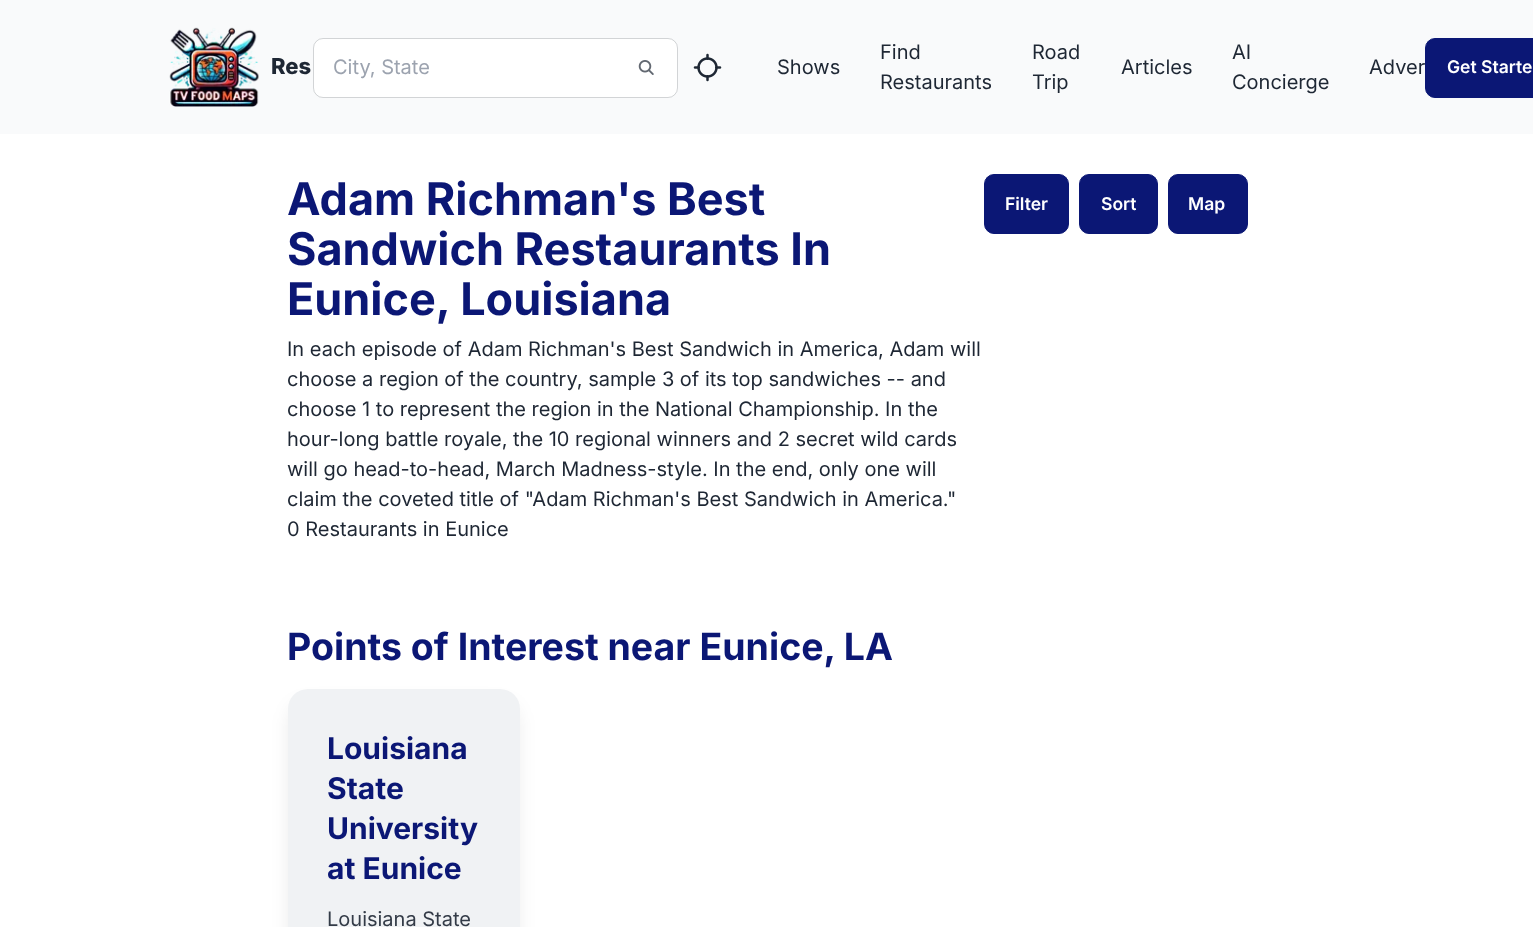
<!DOCTYPE html>
<meta charset="utf-8">
<style>body { margin: 0 } canvas { display: block }</style>
<canvas id="canvas" width="1533" height="927"></canvas>
<img id="img1" src="img_01.png" hidden>
<img id="img2" src="img_02.png" hidden>
<img id="img3" src="img_03.png" hidden>
<script>
window.onload = function () {
	const canvas = document.getElementById("canvas");
	const ctx = canvas.getContext("2d");
	ctx.miterLimit = 4;
	ctx.fontKerning = "normal";
	function txt(s, x, y) {
		ctx.fillText(s, x, y);
	}
	function fill(x, y, w, h) {
		ctx.fillRect(x, y, w, h);
	}
	function round(x, y, w, h, r) {
		ctx.beginPath();
		ctx.roundRect(x, y, w, h, r);
		ctx.fill();
	}
	function img(id, x, y, w, h) {
		ctx.drawImage(document.getElementById(id), x, y, w, h);
	}

	ctx.fillStyle = "#FFFFFF";
	fill(0, 0, 1533, 927);
	ctx.fillStyle = "#F9FAFB";
	fill(0, 0, 1533, 134);
	img("img1", 169, 27, 90, 80);
	ctx.fillStyle = "#FFFFFF";
	round(313, 38, 365, 60, 10);
	ctx.beginPath();
	ctx.roundRect(313.5, 38.5, 364, 59, 9.5);
	ctx.strokeStyle = "rgba(30, 39, 52, 0.2)";
	ctx.stroke();
	img("img2", 638, 60, 16, 15);
	img("img3", 693, 53, 29, 29);
	ctx.fillStyle = "#0B1775";
	ctx.beginPath();
	ctx.roundRect(984.5, 174.5, 84, 59, 9.5);
	ctx.fill();
	ctx.strokeStyle = "#0B1775";
	ctx.stroke();
	ctx.beginPath();
	ctx.roundRect(1079.5, 174.5, 78, 59, 9.5);
	ctx.fill();
	ctx.stroke();
	ctx.beginPath();
	ctx.roundRect(1168.5, 174.5, 79, 59, 9.5);
	ctx.fill();
	ctx.stroke();
	ctx.fillStyle = "rgba(0, 0, 0, 0.1)";
	ctx.filter = "blur(9.5px)";
	ctx.beginPath();
	ctx.roundRect(291, 705, 225, 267, 16);
	ctx.fill();
	ctx.filter = "none";
	ctx.fillStyle = "#F0F2F4";
	round(288, 689, 232, 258, 20);
	ctx.font = "800 22px Inter";
	ctx.fillStyle = "#1E2734";
	txt("Res", 271, 74);
	ctx.font = "20px Inter";
	ctx.fillStyle = "#9CA3AF";
	txt("City, State", 333, 74);
	ctx.fillStyle = "#1E2734";
	txt("Shows", 777, 74);
	txt("Find", 880, 59);
	txt("Restaurants", 880, 89);
	txt("Road", 1032, 59);
	txt("Trip", 1032, 89);
	txt("Articles", 1121, 74);
	txt("AI", 1232, 59);
	txt("Concierge", 1232, 89);
	txt("Adver", 1369, 74);
	ctx.fillStyle = "#0B1775";
	ctx.beginPath();
	ctx.roundRect(1425.5, 38.5, 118, 59, 9.5);
	ctx.fill();
	ctx.stroke();
	ctx.font = "600 17.5px Inter";
	ctx.fillStyle = "#FFFFFF";
	txt("Get Starte", 1447, 73);
	ctx.font = "bold 45px Inter";
	ctx.fillStyle = "#0B1775";
	txt("Adam Richman's Best", 287, 215);
	txt("Sandwich Restaurants In", 287, 265);
	txt("Eunice, Louisiana", 287, 315);
	ctx.font = "20px Inter";
	ctx.fillStyle = "#1E2734";
	txt("In each episode of Adam Richman's Best Sandwich in America, Adam will", 287, 356);
	txt("choose a region of the country, sample 3 of its top sandwiches -- and", 287, 386);
	txt("choose 1 to represent the region in the National Championship. In the", 287, 416);
	txt("hour-long battle royale, the 10 regional winners and 2 secret wild cards", 287, 446);
	txt("will go head-to-head, March Madness-style. In the end, only one will", 287, 476);
	txt("claim the coveted title of \"Adam Richman's Best Sandwich in America.\"", 287, 506);
	txt("0 Restaurants in Eunice", 287, 536);
	ctx.font = "600 17.5px Inter";
	ctx.fillStyle = "#FFFFFF";
	txt("Filter", 1005, 210);
	txt("Sort", 1101, 210);
	txt("Map", 1188, 210);
	ctx.font = "bold 37.5px Inter";
	ctx.fillStyle = "#0B1775";
	txt("Points of Interest near Eunice, LA", 287, 660);
	ctx.font = "bold 30px Inter";
	txt("Louisiana", 327, 759);
	txt("State", 327, 799);
	txt("University", 327, 839);
	txt("at Eunice", 327, 879);
	ctx.font = "20px Inter";
	ctx.fillStyle = "#333B47";
	txt("Louisiana State", 327, 926);
};
</script>
